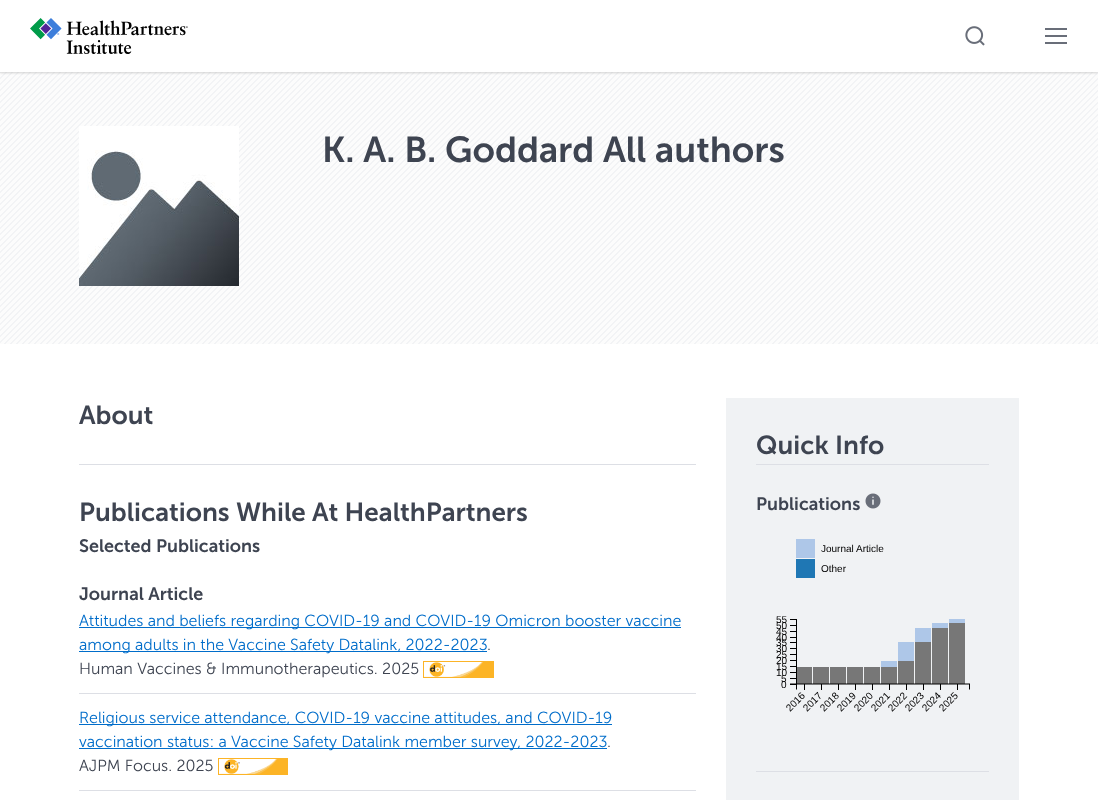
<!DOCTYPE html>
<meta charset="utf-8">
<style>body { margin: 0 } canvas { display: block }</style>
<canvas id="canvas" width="1098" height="800"></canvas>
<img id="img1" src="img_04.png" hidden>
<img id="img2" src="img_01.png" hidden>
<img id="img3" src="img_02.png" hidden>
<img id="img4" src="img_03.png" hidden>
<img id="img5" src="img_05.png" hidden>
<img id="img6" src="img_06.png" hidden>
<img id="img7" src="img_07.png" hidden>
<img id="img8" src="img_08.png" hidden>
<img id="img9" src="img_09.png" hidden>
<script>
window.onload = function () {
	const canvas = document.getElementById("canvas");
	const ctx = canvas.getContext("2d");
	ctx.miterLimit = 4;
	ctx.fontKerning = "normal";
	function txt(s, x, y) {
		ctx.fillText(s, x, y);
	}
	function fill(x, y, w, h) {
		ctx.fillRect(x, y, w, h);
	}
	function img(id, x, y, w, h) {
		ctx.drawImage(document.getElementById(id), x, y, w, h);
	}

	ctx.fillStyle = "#FFFFFF";
	fill(0, 0, 1098, 800);
	img("img1", 0, 72, 1098, 272);
	ctx.save();
	ctx.beginPath();
	ctx.rect(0, 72, 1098, 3);
	ctx.clip();
	ctx.fillStyle = "rgba(168, 168, 168, 0.5)";
	ctx.filter = "blur(1px)";
	ctx.beginPath();
	ctx.rect(0, 1, 1098, 72);
	ctx.fill();
	ctx.filter = "none";
	ctx.restore();
	img("img2", 30, 18, 158, 36);
	img("img3", 965, 26, 20, 20);
	img("img4", 1045, 28, 22, 16);
	img("img5", 79, 126, 160, 160);
	ctx.fillStyle = "#DDDFE5";
	fill(79, 464, 617, 1);
	ctx.fillStyle = "#006DCA";
	fill(79, 627, 602, 1);
	fill(79, 651, 408, 1);
	ctx.strokeStyle = "#FCB426";
	ctx.strokeRect(423.5, 661.5, 70, 16);
	img("img6", 424, 662, 69, 15);
	ctx.fillStyle = "#DDDFE5";
	fill(79, 693, 617, 1);
	ctx.fillStyle = "#006DCA";
	fill(79, 724, 533, 1);
	fill(79, 748, 528, 1);
	ctx.strokeRect(218.5, 758.5, 69, 16);
	img("img7", 219, 759, 68, 15);
	ctx.fillStyle = "#DDDFE5";
	fill(79, 790, 617, 1);
	ctx.fillStyle = "#F0F2F4";
	fill(726, 398, 293, 402);
	ctx.fillStyle = "#DDDFE5";
	fill(756, 464, 233, 1);
	img("img8", 865, 493, 16, 16);
	img("img9", 790, 539, 180, 151);
	fill(756, 771, 233, 1);
	ctx.font = "600 36px Museo Sans";
	ctx.fillStyle = "#3E4451";
	txt("K. A. B. Goddard All authors", 322, 162);
	ctx.font = "600 26px Museo Sans";
	txt("About", 79, 424);
	txt("Publications While At HealthPartners", 79, 521);
	ctx.font = "600 18px Museo Sans";
	txt("Selected Publications", 79, 552);
	txt("Journal Article", 79, 600);
	ctx.font = "300 16px Museo Sans";
	ctx.fillStyle = "#006DCA";
	txt("Attitudes and beliefs regarding COVID-19 and COVID-19 Omicron booster vaccine", 79, 626);
	txt("among adults in the Vaccine Safety Datalink, 2022-2023", 79, 650);
	ctx.fillStyle = "#3E4451";
	txt(".", 487, 650);
	txt("Human Vaccines & Immunotherapeutics. 2025", 79, 674);
	ctx.fillStyle = "#006DCA";
	txt("Religious service attendance, COVID-19 vaccine attitudes, and COVID-19", 79, 723);
	txt("vaccination status: a Vaccine Safety Datalink member survey, 2022-2023", 79, 747);
	ctx.fillStyle = "#3E4451";
	txt(".", 607, 747);
	txt("AJPM Focus. 2025", 79, 771);
	ctx.font = "600 26px Museo Sans";
	txt("Quick Info", 756, 454);
	ctx.font = "600 18px Museo Sans";
	txt("Publications", 756, 510);
	ctx.font = "10px Liberation Sans";
	ctx.fillStyle = "#000000";
	txt("Journal Article", 821, 552);
	txt("Other", 821, 572);
	txt("55", 776, 623);
	txt("50", 776, 629);
	txt("45", 776, 635);
	txt("40", 776, 641);
	txt("35", 776, 646);
	txt("30", 776, 652);
	txt("25", 776, 658);
	txt("20", 776, 664);
	txt("15", 776, 670);
	txt("10", 776, 676);
	txt("5", 781, 682);
	txt("0", 781, 688);
	ctx.save();
	ctx.translate(790, 712);
	ctx.rotate(-45 * Math.PI / 180);
	ctx.fillText("2016", 0, 0);
	ctx.restore();
	ctx.save();
	ctx.translate(807, 712);
	ctx.rotate(-45 * Math.PI / 180);
	ctx.fillText("2017", 0, 0);
	ctx.restore();
	ctx.save();
	ctx.translate(824, 712);
	ctx.rotate(-45 * Math.PI / 180);
	ctx.fillText("2018", 0, 0);
	ctx.restore();
	ctx.save();
	ctx.translate(841, 712);
	ctx.rotate(-45 * Math.PI / 180);
	ctx.fillText("2019", 0, 0);
	ctx.restore();
	ctx.save();
	ctx.translate(858, 712);
	ctx.rotate(-45 * Math.PI / 180);
	ctx.fillText("2020", 0, 0);
	ctx.restore();
	ctx.save();
	ctx.translate(875, 712);
	ctx.rotate(-45 * Math.PI / 180);
	ctx.fillText("2021", 0, 0);
	ctx.restore();
	ctx.save();
	ctx.translate(892, 712);
	ctx.rotate(-45 * Math.PI / 180);
	ctx.fillText("2022", 0, 0);
	ctx.restore();
	ctx.save();
	ctx.translate(909, 712);
	ctx.rotate(-45 * Math.PI / 180);
	ctx.fillText("2023", 0, 0);
	ctx.restore();
	ctx.save();
	ctx.translate(926, 712);
	ctx.rotate(-45 * Math.PI / 180);
	ctx.fillText("2024", 0, 0);
	ctx.restore();
	ctx.save();
	ctx.translate(943, 712);
	ctx.rotate(-45 * Math.PI / 180);
	ctx.fillText("2025", 0, 0);
	ctx.restore();
};
</script>
